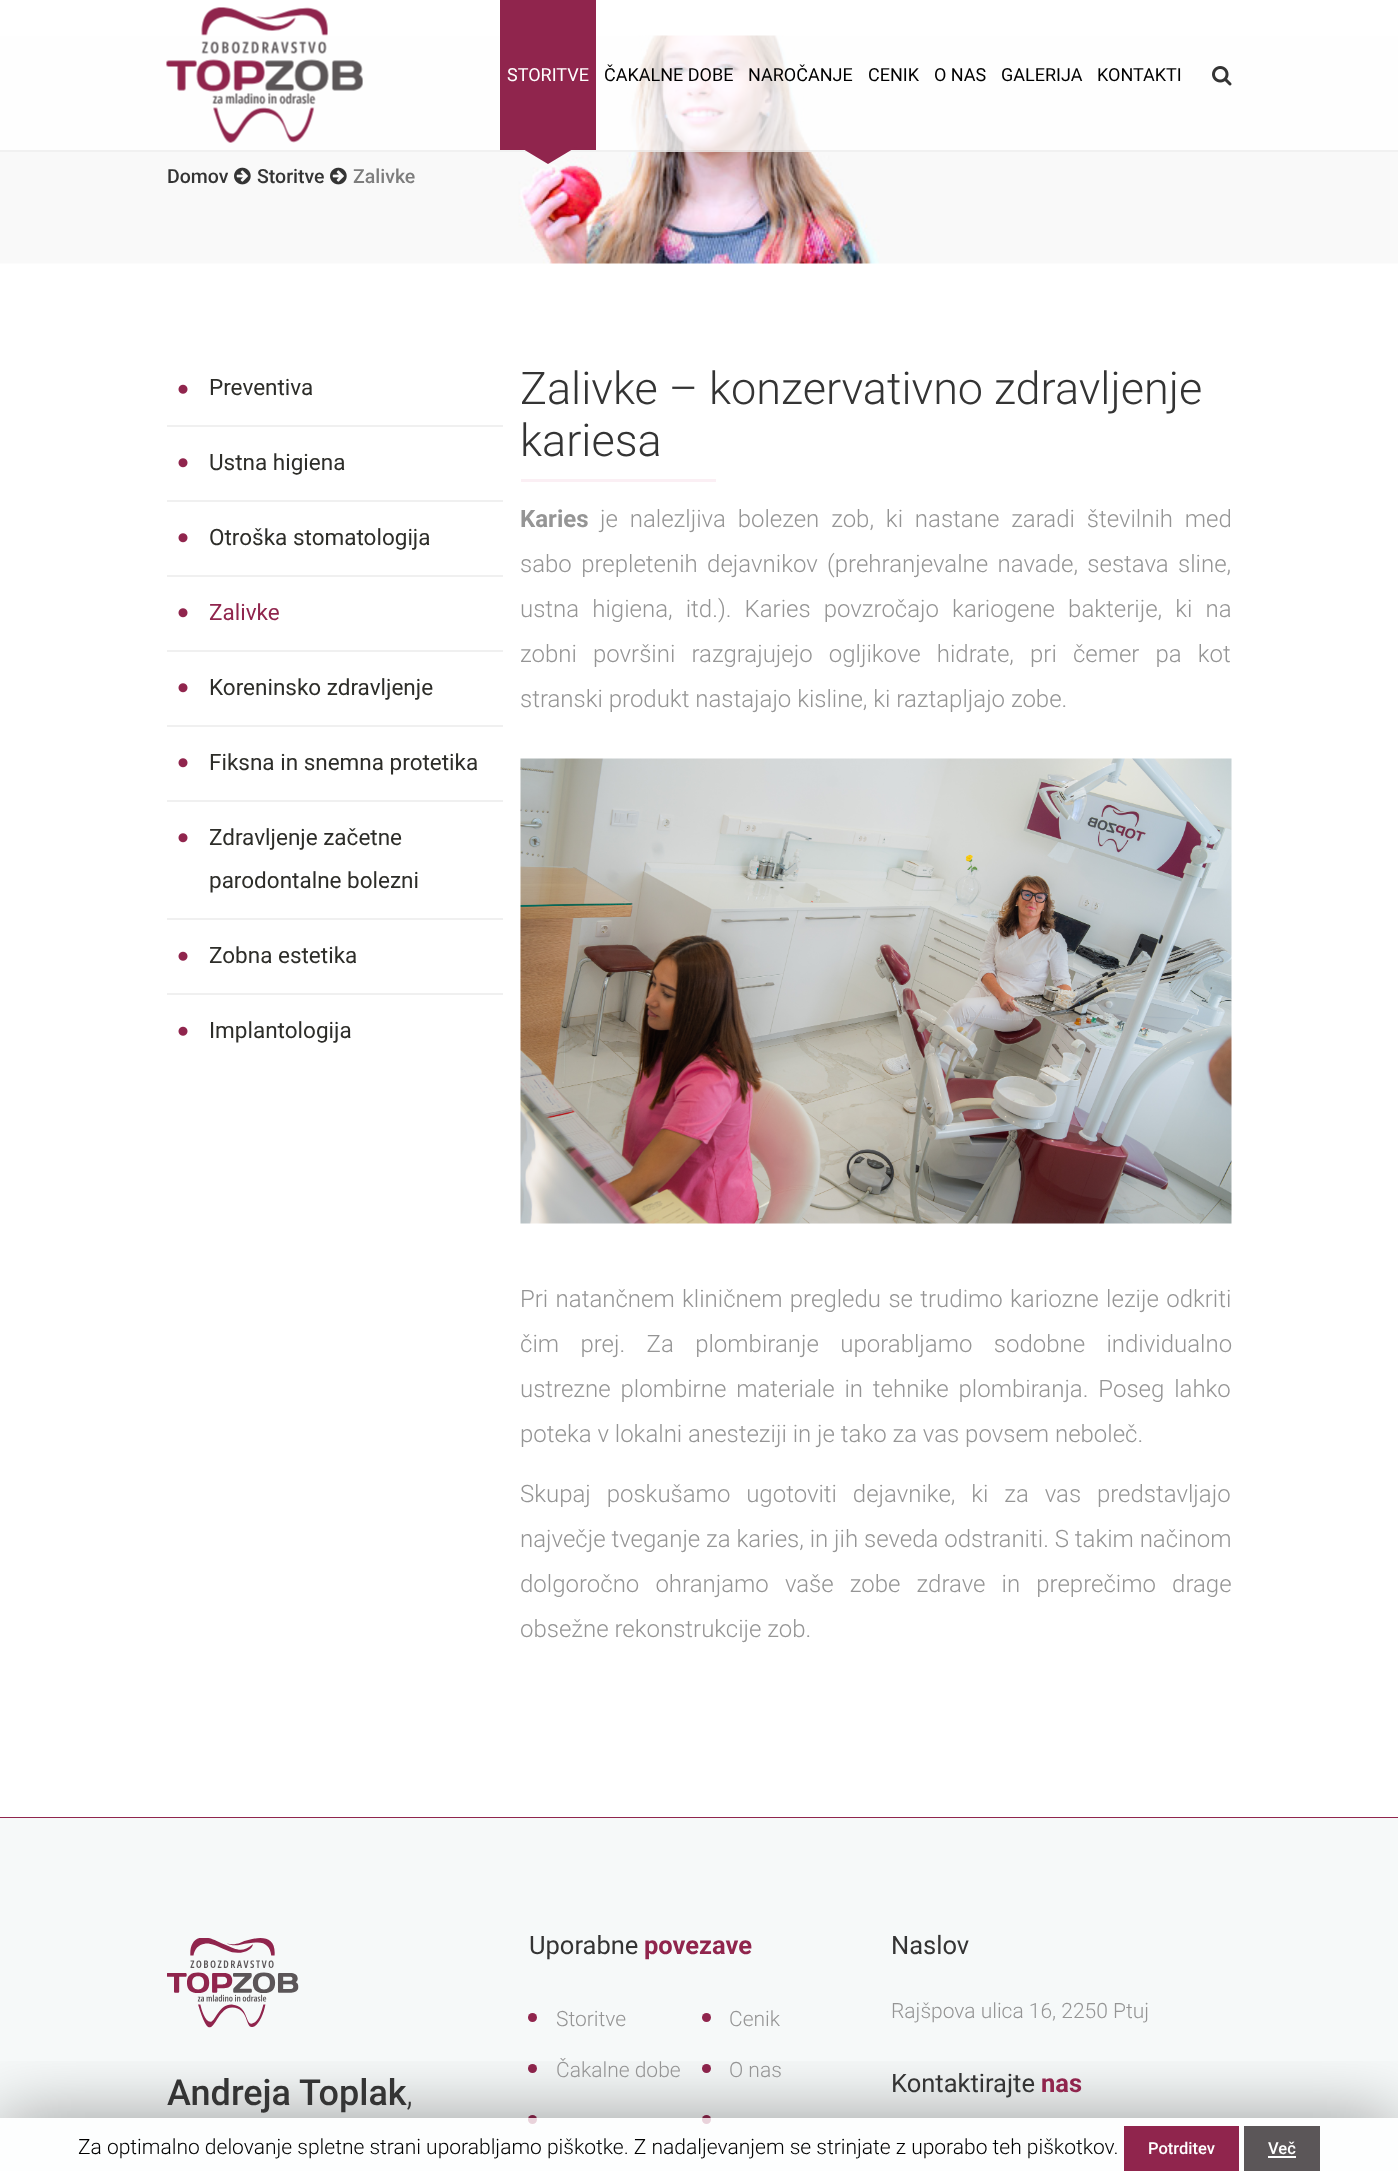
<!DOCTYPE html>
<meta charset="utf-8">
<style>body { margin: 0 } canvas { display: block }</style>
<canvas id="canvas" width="1398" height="2171"></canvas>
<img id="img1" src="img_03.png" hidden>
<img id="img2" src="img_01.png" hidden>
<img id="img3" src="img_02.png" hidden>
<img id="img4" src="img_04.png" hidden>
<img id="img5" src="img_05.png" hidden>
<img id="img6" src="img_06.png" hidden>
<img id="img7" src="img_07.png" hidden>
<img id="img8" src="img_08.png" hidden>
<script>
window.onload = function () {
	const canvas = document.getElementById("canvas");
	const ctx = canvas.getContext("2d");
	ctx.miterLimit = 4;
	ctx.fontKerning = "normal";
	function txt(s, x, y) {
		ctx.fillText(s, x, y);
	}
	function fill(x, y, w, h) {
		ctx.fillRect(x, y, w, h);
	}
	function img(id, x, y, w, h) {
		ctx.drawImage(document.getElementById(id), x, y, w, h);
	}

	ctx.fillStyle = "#FFFFFF";
	fill(0, 0, 1398, 2171);
	img("img1", 0, 35, 1398, 229);
	ctx.fillStyle = "rgba(255, 255, 255, 0.8)";
	fill(0, 35, 1398, 117);
	ctx.fillStyle = "rgba(0, 0, 0, 0.05)";
	fill(0, 150, 1398, 2);
	img("img2", 166, 7, 197, 136);
	ctx.fillStyle = "#90254D";
	fill(500, 0, 96, 150);
	ctx.beginPath();
	ctx.moveTo(518, 146);
	ctx.lineTo(578, 146);
	ctx.lineTo(548, 164);
	ctx.closePath();
	ctx.fill();
	img("img3", 1212, 66, 20, 20);
	img("img4", 234, 167, 17, 18);
	img("img4", 330, 167, 17, 18);
	ctx.fillStyle = "#F0F0F0";
	fill(167, 425, 336, 2);
	img("img5", 178, 384, 10, 10);
	fill(167, 500, 336, 2);
	img("img6", 178, 458, 10, 10);
	fill(167, 575, 336, 2);
	img("img6", 178, 533, 10, 10);
	fill(167, 650, 336, 2);
	img("img6", 178, 608, 10, 10);
	fill(167, 725, 336, 2);
	img("img6", 178, 683, 10, 10);
	fill(167, 800, 336, 2);
	img("img6", 178, 758, 10, 10);
	fill(167, 918, 336, 2);
	img("img6", 178, 833, 10, 10);
	fill(167, 993, 336, 2);
	img("img5", 178, 951, 10, 10);
	img("img5", 178, 1026, 10, 10);
	ctx.fillStyle = "#FBEFF4";
	fill(521, 479, 195, 3);
	img("img7", 520, 758, 712, 466);
	ctx.fillStyle = "#90254D";
	fill(0, 1817, 1398, 1);
	ctx.fillStyle = "#F6F9F9";
	fill(0, 1818, 1398, 353);
	img("img8", 167, 1938, 132, 90);
	ctx.fillStyle = "#90254D";
	ctx.beginPath();
	ctx.arc(532.5, 2017.5, 4.5, 0, Math.PI * 2);
	ctx.fill();
	ctx.beginPath();
	ctx.arc(532.5, 2068.5, 4.5, 0, Math.PI * 2);
	ctx.fill();
	ctx.beginPath();
	ctx.arc(532.5, 2119.5, 4.5, 0, Math.PI * 2);
	ctx.fill();
	ctx.beginPath();
	ctx.arc(706.5, 2017.5, 4.5, 0, Math.PI * 2);
	ctx.fill();
	ctx.beginPath();
	ctx.arc(706.5, 2068.5, 4.5, 0, Math.PI * 2);
	ctx.fill();
	ctx.beginPath();
	ctx.arc(706.5, 2119.5, 4.5, 0, Math.PI * 2);
	ctx.fill();
	ctx.save();
	ctx.beginPath();
	ctx.rect(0, 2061, 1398, 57);
	ctx.clip();
	ctx.fillStyle = "rgba(0, 0, 0, 0.5)";
	ctx.filter = "blur(37.5px)";
	ctx.beginPath();
	ctx.rect(0, 2126, 1398, 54);
	ctx.fill();
	ctx.filter = "none";
	ctx.restore();
	ctx.fillStyle = "rgba(255, 255, 255, 0.8)";
	fill(0, 2118, 1398, 53);
	ctx.fillStyle = "#90254D";
	fill(1124, 2126, 115, 45);
	ctx.fillStyle = "#5B5658";
	fill(1244, 2126, 76, 45);
	ctx.fillStyle = "#FFFFFF";
	fill(1268, 2156, 28, 2);
	ctx.font = "18px Roboto";
	txt("STORITVE", 507, 81);
	ctx.fillStyle = "#000000";
	txt("ČAKALNE DOBE", 604, 81);
	txt("NAROČANJE", 748, 81);
	txt("CENIK", 868, 81);
	txt("O NAS", 934, 81);
	txt("GALERIJA", 1001, 81);
	txt("KONTAKTI", 1097, 81);
	ctx.font = "500 19.5px Roboto";
	ctx.fillStyle = "#343434";
	txt("Domov", 167, 183);
	txt("Storitve", 257, 183);
	ctx.fillStyle = "#7D7D7D";
	txt("Zalivke", 353, 183);
	ctx.font = "22.5px Roboto";
	ctx.fillStyle = "#2D2D29";
	txt("Preventiva", 209, 395);
	txt("Ustna higiena", 209, 470);
	txt("Otroška stomatologija", 209, 545);
	ctx.fillStyle = "#90254D";
	txt("Zalivke", 209, 620);
	ctx.fillStyle = "#2D2D29";
	txt("Koreninsko zdravljenje", 209, 695);
	txt("Fiksna in snemna protetika", 209, 770);
	txt("Zdravljenje začetne", 209, 845);
	txt("parodontalne bolezni", 209, 888);
	txt("Zobna estetika", 209, 963);
	txt("Implantologija", 209, 1038);
	ctx.font = "300 45px Roboto";
	ctx.fillStyle = "#343434";
	txt("Zalivke – konzervativno zdravljenje", 520, 404);
	txt("kariesa", 520, 456);
	ctx.font = "bold 24px Roboto";
	ctx.fillStyle = "#959595";
	txt("Karies", 520, 527);
	ctx.wordSpacing = "6px";
	ctx.font = "300 24px Roboto";
	txt("je nalezljiva bolezen zob, ki nastane zaradi številnih med", 600, 527);
	ctx.wordSpacing = "3.5px";
	txt("sabo prepletenih dejavnikov (prehranjevalne navade, sestava sline,", 520, 572);
	ctx.wordSpacing = "7.25px";
	txt("ustna higiena, itd.). Karies povzročajo kariogene bakterije, ki na", 520, 617);
	ctx.wordSpacing = "10.25px";
	txt("zobni površini razgrajujejo ogljikove hidrate, pri čemer pa kot", 520, 662);
	ctx.wordSpacing = "0px";
	txt("stranski produkt nastajajo kisline, ki raztapljajo zobe.", 520, 707);
	ctx.wordSpacing = "1.5px";
	txt("Pri natančnem kliničnem pregledu se trudimo kariozne lezije odkriti", 520, 1307);
	ctx.wordSpacing = "15.5px";
	txt("čim prej. Za plombiranje uporabljamo sodobne individualno", 520, 1352);
	ctx.wordSpacing = "4px";
	txt("ustrezne plombirne materiale in tehnike plombiranja. Poseg lahko", 520, 1397);
	ctx.wordSpacing = "0px";
	txt("poteka v lokalni anesteziji in je tako za vas povsem neboleč.", 520, 1442);
	ctx.wordSpacing = "10px";
	txt("Skupaj poskušamo ugotoviti dejavnike, ki za vas predstavljajo", 520, 1502);
	ctx.wordSpacing = "0px";
	txt("največje tveganje za karies, in jih seveda odstraniti. S takim načinom", 520, 1547);
	ctx.wordSpacing = "10.25px";
	txt("dolgoročno ohranjamo vaše zobe zdrave in preprečimo drage", 520, 1592);
	ctx.wordSpacing = "0px";
	txt("obsežne rekonstrukcije zob.", 520, 1637);
	ctx.font = "500 36px Roboto";
	ctx.fillStyle = "#343434";
	txt("Andreja Toplak", 167, 2105);
	ctx.font = "300 36px Roboto";
	txt(",", 406, 2105);
	ctx.font = "25.5px Roboto";
	txt("Uporabne", 529, 1954);
	ctx.font = "bold 25.5px Roboto";
	ctx.fillStyle = "#90254D";
	txt("povezave", 644, 1954);
	ctx.font = "300 21px Roboto";
	ctx.fillStyle = "#959595";
	txt("Storitve", 556, 2026);
	txt("Čakalne dobe", 556, 2077);
	txt("Cenik", 729, 2026);
	txt("O nas", 729, 2077);
	ctx.font = "25.5px Roboto";
	ctx.fillStyle = "#343434";
	txt("Naslov", 891, 1954);
	ctx.font = "300 21px Roboto";
	ctx.fillStyle = "#959595";
	txt("Rajšpova ulica 16, 2250 Ptuj", 891, 2018);
	ctx.font = "25.5px Roboto";
	ctx.fillStyle = "#343434";
	txt("Kontaktirajte", 891, 2092);
	ctx.font = "bold 25.5px Roboto";
	ctx.fillStyle = "#90254D";
	txt("nas", 1041, 2092);
	ctx.font = "300 21px Roboto";
	ctx.fillStyle = "#000000";
	txt("Za optimalno delovanje spletne strani uporabljamo piškotke. Z nadaljevanjem se strinjate z uporabo teh piškotkov.", 78, 2154);
	ctx.font = "500 16.5px Roboto";
	ctx.fillStyle = "#FFFFFF";
	txt("Potrditev", 1148, 2154);
	txt("Več", 1268, 2154);
};
</script>
